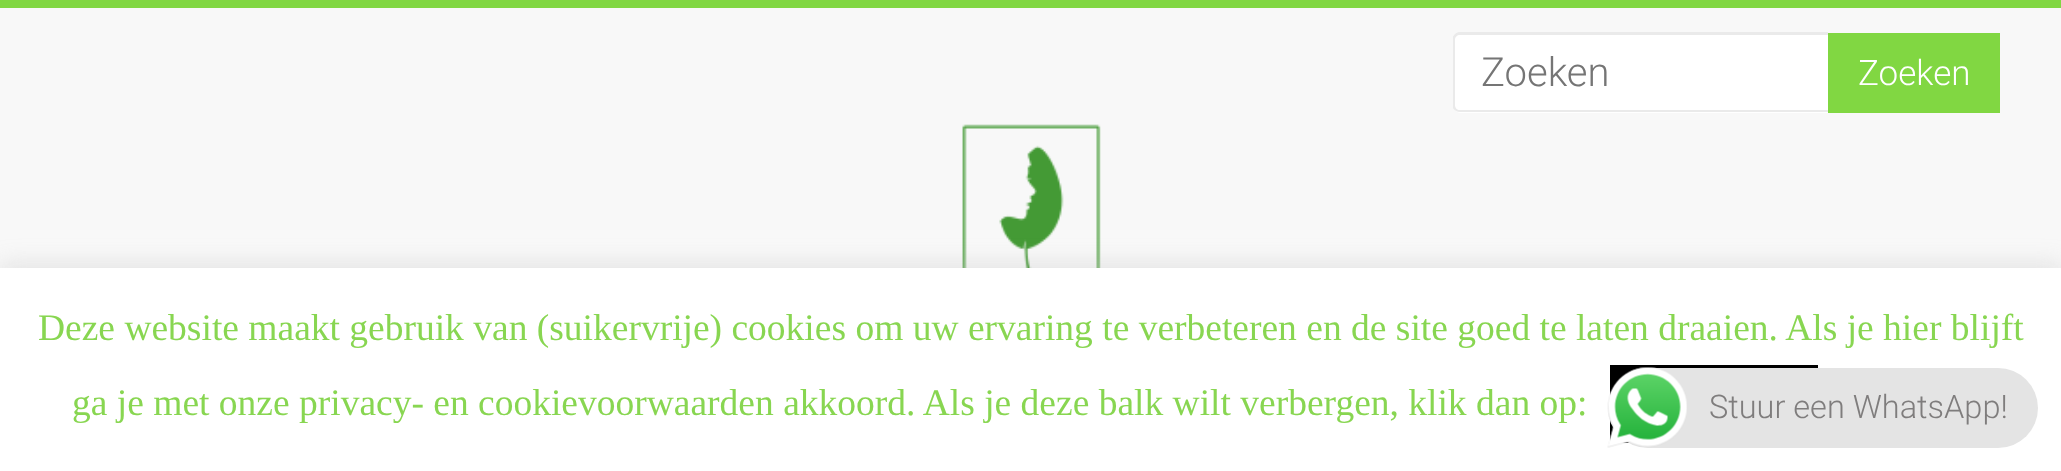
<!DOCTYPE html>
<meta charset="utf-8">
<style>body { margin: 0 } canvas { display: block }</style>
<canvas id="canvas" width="2061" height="471"></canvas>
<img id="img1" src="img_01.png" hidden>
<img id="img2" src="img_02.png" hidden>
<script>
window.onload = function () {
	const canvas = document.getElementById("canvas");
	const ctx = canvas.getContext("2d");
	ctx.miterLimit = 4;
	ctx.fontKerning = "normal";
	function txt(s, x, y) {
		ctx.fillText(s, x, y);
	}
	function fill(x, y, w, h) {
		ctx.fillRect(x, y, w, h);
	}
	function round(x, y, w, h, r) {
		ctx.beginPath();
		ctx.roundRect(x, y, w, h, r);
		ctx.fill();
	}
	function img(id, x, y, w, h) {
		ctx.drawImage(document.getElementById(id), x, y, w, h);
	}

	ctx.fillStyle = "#81D742";
	fill(0, 0, 2061, 471);
	ctx.fillStyle = "#F8F8F8";
	fill(0, 8, 2061, 260);
	ctx.fillStyle = "#FFFFFF";
	ctx.beginPath();
	ctx.roundRect(1453, 33, 375, 80, [8, 0, 0, 8]);
	ctx.fill();
	ctx.save();
	ctx.beginPath();
	ctx.rect(1453, 8, 547, 105);
	ctx.clip();
	ctx.fillStyle = "#EAEAEA";
	ctx.beginPath();
	ctx.moveTo(1460, 32);
	ctx.lineTo(1828, 32);
	ctx.lineTo(1828, 112);
	ctx.lineTo(1460, 112);
	ctx.bezierCurveTo(1456, 112, 1452, 109, 1452, 105);
	ctx.lineTo(1452, 40);
	ctx.bezierCurveTo(1452, 36, 1456, 32, 1460, 32);
	ctx.closePath();
	ctx.moveTo(1460, 35);
	ctx.lineTo(1828, 35);
	ctx.lineTo(1828, 110);
	ctx.lineTo(1460, 110);
	ctx.bezierCurveTo(1457, 110, 1455, 108, 1455, 105);
	ctx.lineTo(1455, 40);
	ctx.bezierCurveTo(1455, 37, 1457, 35, 1460, 35);
	ctx.closePath();
	ctx.fill("evenodd");
	ctx.restore();
	ctx.fillStyle = "#81D742";
	fill(1828, 33, 172, 80);
	img("img1", 962, 124, 139, 144);
	ctx.fillStyle = "rgba(172, 171, 171, 0.3)";
	ctx.filter = "blur(12.5px)";
	ctx.beginPath();
	ctx.rect(0, 265, 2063, 205);
	ctx.fill();
	ctx.filter = "none";
	ctx.fillStyle = "#FFFFFF";
	fill(0, 268, 2061, 203);
	ctx.fillStyle = "#000000";
	fill(1610, 365, 208, 78);
	ctx.fillStyle = "#E4E4E4";
	round(1608, 368, 430, 80, 40);
	img("img2", 1607, 367, 80, 81);
	ctx.font = "300 40px Roboto";
	ctx.fillStyle = "#757575";
	txt("Zoeken", 1481, 86);
	ctx.font = "300 35px Roboto";
	ctx.fillStyle = "#FFFFFF";
	txt("Zoeken", 1858, 85);
	ctx.font = "37.5px Liberation Serif";
	ctx.fillStyle = "#88D651";
	txt("Deze website maakt gebruik van (suikervrije) cookies om uw ervaring te verbeteren en de site goed te laten draaien. Als je hier blijft", 38, 340);
	txt("ga je met onze privacy- en cookievoorwaarden akkoord. Als je deze balk wilt verbergen, klik dan op:", 72, 415);
	ctx.font = "300 32.5px Roboto";
	ctx.fillStyle = "#7F7D7D";
	txt("Stuur een WhatsApp!", 1709, 418);
};
</script>
